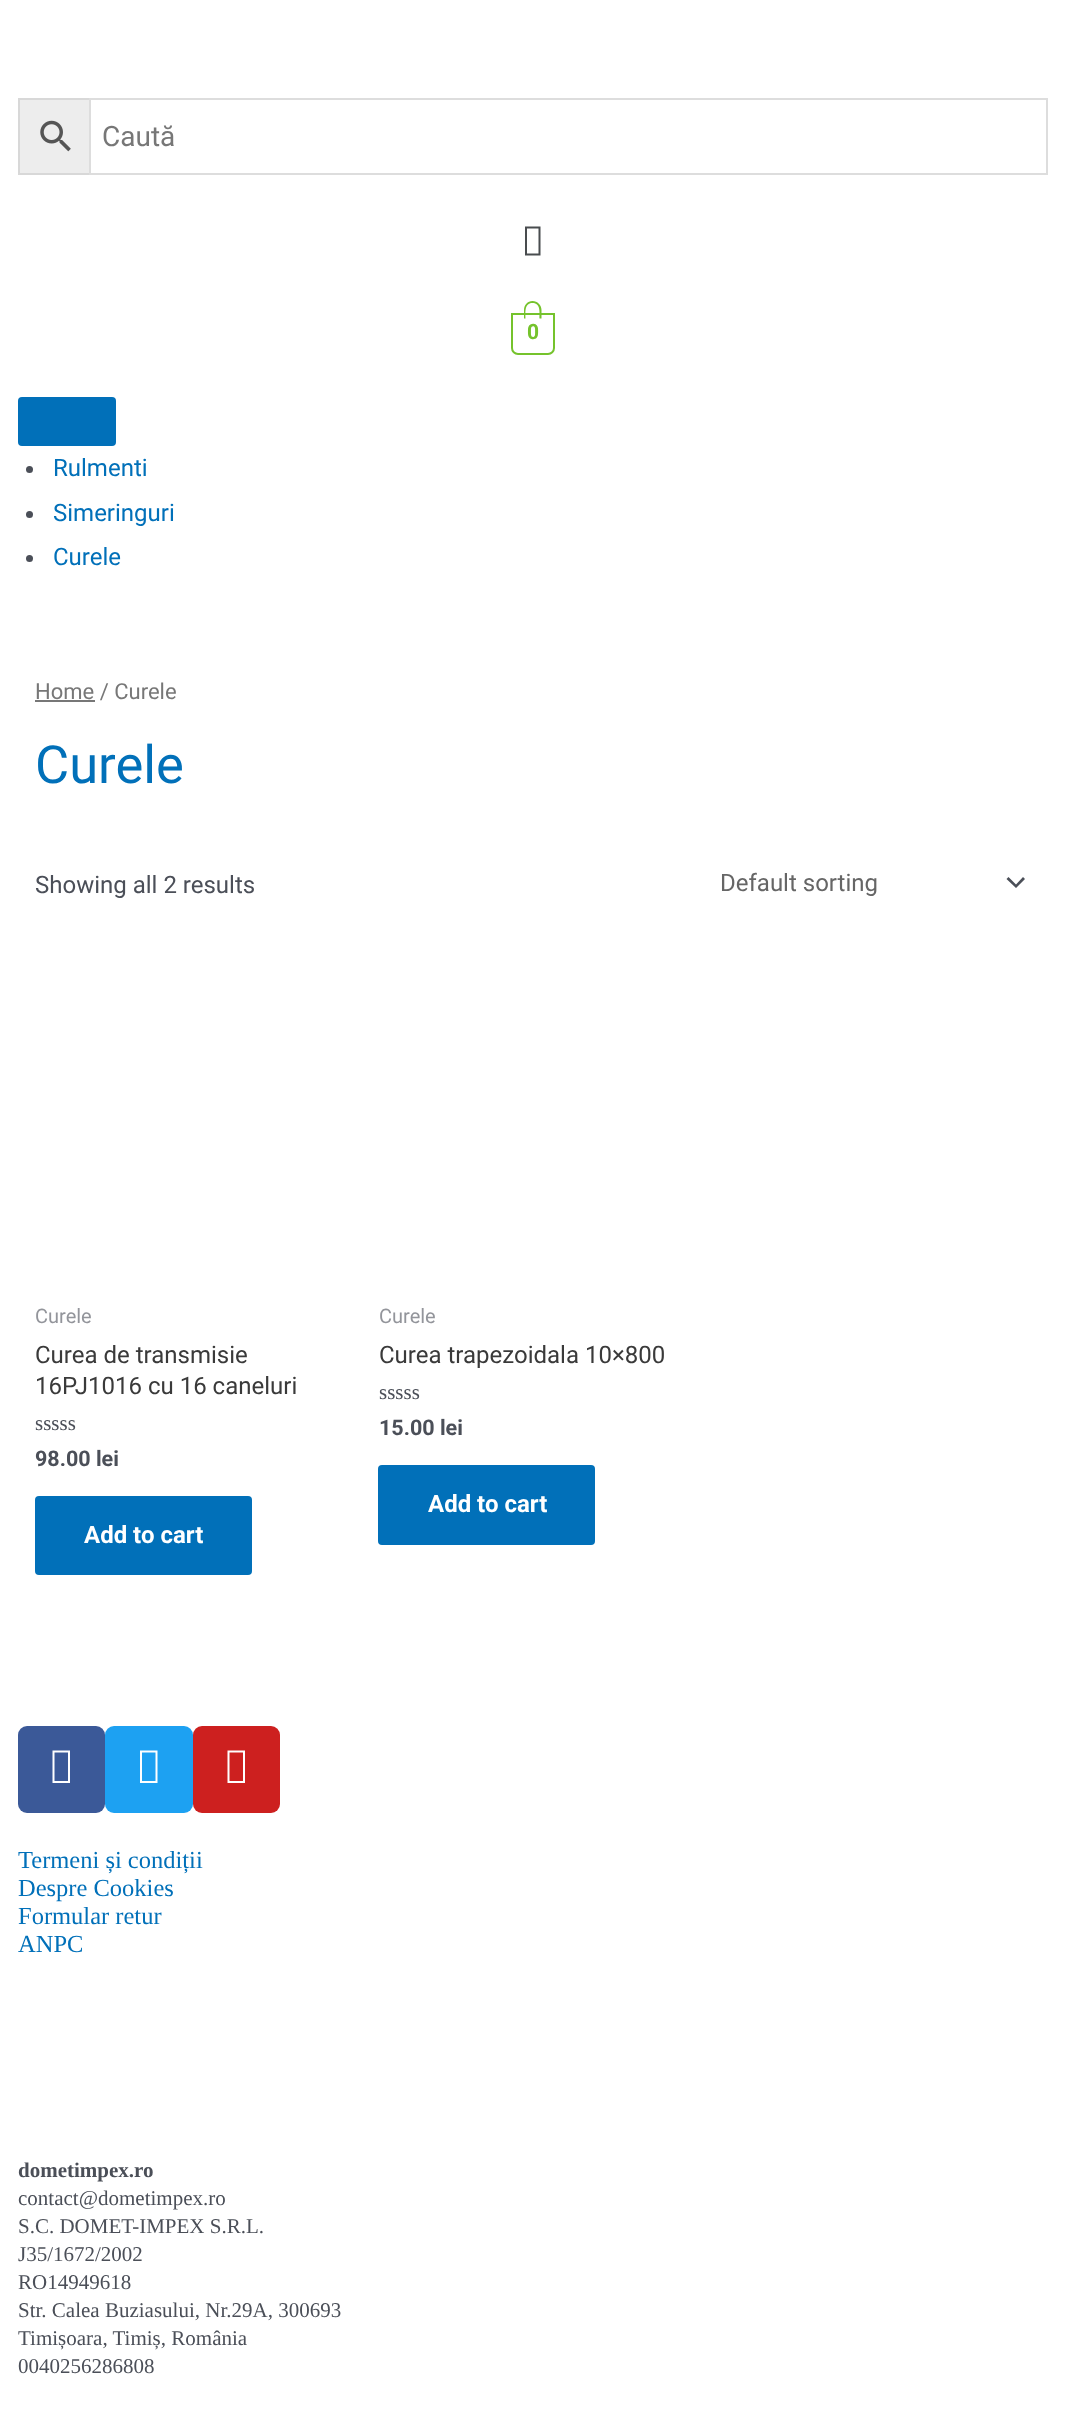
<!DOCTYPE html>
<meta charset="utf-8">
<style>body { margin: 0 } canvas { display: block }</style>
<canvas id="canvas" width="1065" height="2411"></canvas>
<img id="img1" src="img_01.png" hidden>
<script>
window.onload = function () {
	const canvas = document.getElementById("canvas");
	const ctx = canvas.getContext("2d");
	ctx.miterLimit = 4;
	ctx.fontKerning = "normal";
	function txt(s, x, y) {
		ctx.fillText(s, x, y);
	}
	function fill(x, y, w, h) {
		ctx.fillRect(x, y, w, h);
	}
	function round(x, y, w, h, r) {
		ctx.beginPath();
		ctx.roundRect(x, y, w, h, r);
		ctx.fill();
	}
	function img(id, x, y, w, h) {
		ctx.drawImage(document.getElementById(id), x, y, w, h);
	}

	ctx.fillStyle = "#FFFFFF";
	fill(0, 0, 1065, 2411);
	ctx.fillStyle = "#EDEDED";
	ctx.beginPath();
	ctx.rect(19, 99, 71, 75);
	ctx.fill();
	ctx.strokeStyle = "#D8D8D8";
	ctx.lineWidth = 2;
	ctx.stroke();
	img("img1", 40, 120, 31, 32);
	ctx.strokeStyle = "#DDDDDD";
	ctx.strokeRect(90, 99, 957, 75);
	ctx.fillStyle = "#494C4F";
	ctx.beginPath();
	ctx.moveTo(525, 255.5);
	ctx.lineTo(525, 226.5);
	ctx.lineTo(540.5, 226.5);
	ctx.lineTo(540.5, 255.5);
	ctx.closePath();
	ctx.moveTo(527, 253.5);
	ctx.lineTo(538.5, 253.5);
	ctx.lineTo(538.5, 228.5);
	ctx.lineTo(527, 228.5);
	ctx.closePath();
	ctx.fill();
	ctx.beginPath();
	ctx.roundRect(512, 314, 42, 40, [0, 0, 6, 6]);
	ctx.strokeStyle = "#75C32C";
	ctx.stroke();
	ctx.fillStyle = "#75C32C";
	ctx.beginPath();
	ctx.moveTo(532.5, 301);
	ctx.bezierCurveTo(537.5, 301, 541.5, 305, 541.5, 310);
	ctx.lineTo(541.5, 318.5);
	ctx.lineTo(524, 318.5);
	ctx.lineTo(524, 310);
	ctx.bezierCurveTo(524, 305, 527.5, 301, 532.5, 301);
	ctx.closePath();
	ctx.moveTo(532.5, 303);
	ctx.bezierCurveTo(541, 303, 539.5, 313, 539.5, 318.5);
	ctx.lineTo(525.5, 318.5);
	ctx.bezierCurveTo(525.5, 313, 524, 303, 532.5, 303);
	ctx.closePath();
	ctx.fill("evenodd");
	ctx.fillStyle = "#0170B9";
	round(18, 397, 98, 49, 4);
	ctx.fillStyle = "#4B4F58";
	ctx.beginPath();
	ctx.arc(29.5, 469.5, 3.5, 0, Math.PI * 2);
	ctx.fill();
	ctx.beginPath();
	ctx.arc(29.5, 514.5, 3.5, 0, Math.PI * 2);
	ctx.fill();
	ctx.beginPath();
	ctx.arc(29.5, 558.5, 3.5, 0, Math.PI * 2);
	ctx.fill();
	ctx.fillStyle = "#777777";
	fill(35, 700, 60, 2);
	ctx.fillStyle = "#4B4F58";
	ctx.beginPath();
	ctx.moveTo(1006.5, 879);
	ctx.lineTo(1016, 888);
	ctx.lineTo(1025, 879);
	ctx.lineTo(1023, 877);
	ctx.lineTo(1016, 884.5);
	ctx.lineTo(1008.5, 877);
	ctx.closePath();
	ctx.fill();
	ctx.fillStyle = "#0170B9";
	round(35, 1496, 217, 79, 4);
	round(378, 1465, 217, 80, 4);
	ctx.fillStyle = "#3B5998";
	round(18, 1726, 87, 87, 9);
	ctx.fillStyle = "#FFFFFF";
	ctx.beginPath();
	ctx.moveTo(52.5, 1783);
	ctx.lineTo(52.5, 1750.5);
	ctx.lineTo(70, 1750.5);
	ctx.lineTo(70, 1783);
	ctx.closePath();
	ctx.moveTo(54.5, 1781);
	ctx.lineTo(68, 1781);
	ctx.lineTo(68, 1752.5);
	ctx.lineTo(54.5, 1752.5);
	ctx.closePath();
	ctx.fill();
	ctx.fillStyle = "#1DA1F2";
	round(105, 1726, 88, 87, 9);
	ctx.fillStyle = "#FFFFFF";
	ctx.beginPath();
	ctx.moveTo(140, 1783);
	ctx.lineTo(140, 1750.5);
	ctx.lineTo(157.5, 1750.5);
	ctx.lineTo(157.5, 1783);
	ctx.closePath();
	ctx.moveTo(142, 1781);
	ctx.lineTo(155.5, 1781);
	ctx.lineTo(155.5, 1752.5);
	ctx.lineTo(142, 1752.5);
	ctx.closePath();
	ctx.fill();
	ctx.fillStyle = "#CD201F";
	round(193, 1726, 87, 87, 9);
	ctx.fillStyle = "#FFFFFF";
	ctx.beginPath();
	ctx.moveTo(227.5, 1783);
	ctx.lineTo(227.5, 1750.5);
	ctx.lineTo(245, 1750.5);
	ctx.lineTo(245, 1783);
	ctx.closePath();
	ctx.moveTo(229.5, 1781);
	ctx.lineTo(243, 1781);
	ctx.lineTo(243, 1752.5);
	ctx.lineTo(229.5, 1752.5);
	ctx.closePath();
	ctx.fill();
	ctx.font = "28px Roboto";
	ctx.fillStyle = "#777777";
	txt("Caută", 102, 146);
	ctx.font = "bold 21px Roboto";
	ctx.fillStyle = "#75C32C";
	txt("0", 527, 339);
	ctx.font = "24px Roboto";
	ctx.fillStyle = "#0170B9";
	txt("Rulmenti", 53, 476);
	txt("Simeringuri", 53, 521);
	txt("Curele", 53, 565);
	ctx.font = "22px Roboto";
	ctx.fillStyle = "#777777";
	txt("Home / Curele", 35, 699);
	ctx.font = "52.5px Roboto";
	ctx.fillStyle = "#0170B9";
	txt("Curele", 35, 783);
	ctx.font = "24px Roboto";
	ctx.fillStyle = "#4B4F58";
	txt("Showing all 2 results", 35, 893);
	ctx.fillStyle = "#666666";
	txt("Default sorting", 720, 891);
	ctx.font = "20px Roboto";
	ctx.fillStyle = "#93959B";
	txt("Curele", 35, 1323);
	ctx.font = "24px Roboto";
	ctx.fillStyle = "#3A3A3A";
	txt("Curea de transmisie", 35, 1363);
	txt("16PJ1016 cu 16 caneluri", 35, 1394);
	ctx.font = "21px Liberation Serif";
	ctx.fillStyle = "#4B4F58";
	txt("sssss", 35, 1430);
	ctx.font = "bold 21.5px Roboto";
	txt("98.00 lei", 35, 1466);
	ctx.font = "bold 24px Roboto";
	ctx.fillStyle = "#FFFFFF";
	txt("Add to cart", 84, 1543);
	ctx.font = "20px Roboto";
	ctx.fillStyle = "#93959B";
	txt("Curele", 379, 1323);
	ctx.font = "24px Roboto";
	ctx.fillStyle = "#3A3A3A";
	txt("Curea trapezoidala 10×800", 379, 1363);
	ctx.font = "21px Liberation Serif";
	ctx.fillStyle = "#4B4F58";
	txt("sssss", 379, 1399);
	ctx.font = "bold 21.5px Roboto";
	txt("15.00 lei", 379, 1435);
	ctx.font = "bold 24px Roboto";
	ctx.fillStyle = "#FFFFFF";
	txt("Add to cart", 428, 1512);
	ctx.font = "24.5px Liberation Serif";
	ctx.fillStyle = "#0170B9";
	txt("Termeni și condiții", 18, 1868);
	txt("Despre Cookies", 18, 1896);
	txt("Formular retur", 18, 1924);
	txt("ANPC", 18, 1952);
	ctx.font = "bold 21px Liberation Serif";
	ctx.fillStyle = "#4B4F58";
	txt("dometimpex.ro", 18, 2177);
	ctx.font = "21px Liberation Serif";
	txt("contact@dometimpex.ro", 18, 2205);
	txt("S.C. DOMET-IMPEX S.R.L.", 18, 2233);
	txt("J35/1672/2002", 18, 2261);
	txt("RO14949618", 18, 2289);
	txt("Str. Calea Buziasului, Nr.29A, 300693", 18, 2317);
	txt("Timișoara, Timiș, România", 18, 2345);
	txt("0040256286808", 18, 2373);
};
</script>
